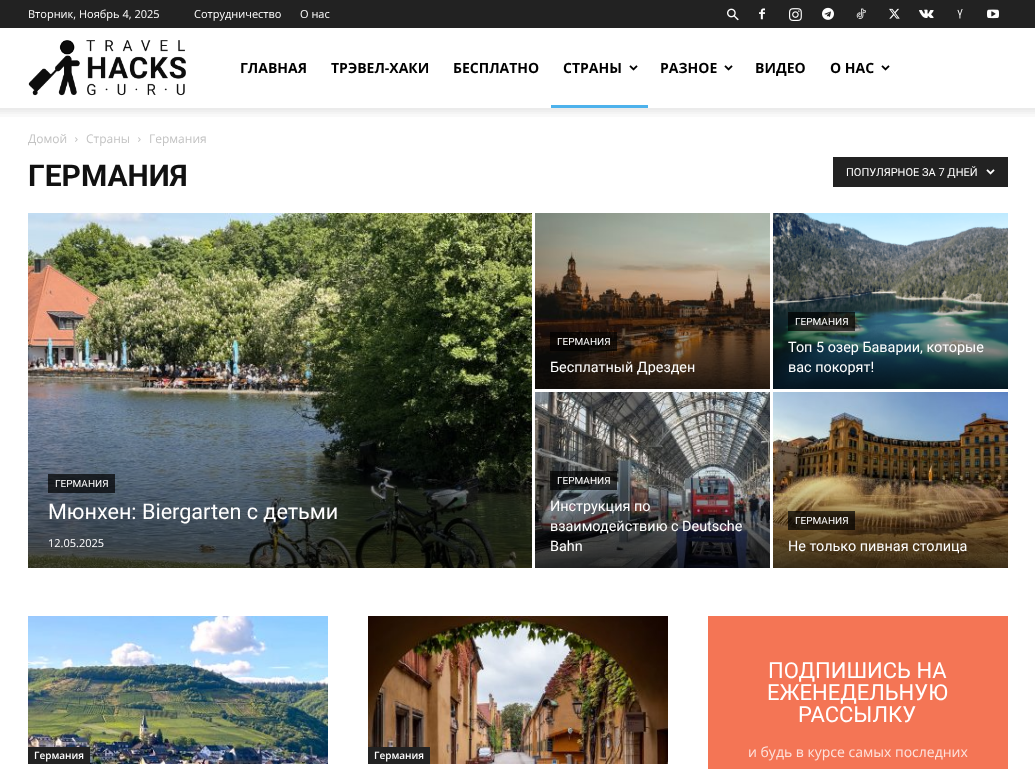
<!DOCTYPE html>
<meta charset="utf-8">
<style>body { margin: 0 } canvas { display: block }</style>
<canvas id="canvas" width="1035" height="769"></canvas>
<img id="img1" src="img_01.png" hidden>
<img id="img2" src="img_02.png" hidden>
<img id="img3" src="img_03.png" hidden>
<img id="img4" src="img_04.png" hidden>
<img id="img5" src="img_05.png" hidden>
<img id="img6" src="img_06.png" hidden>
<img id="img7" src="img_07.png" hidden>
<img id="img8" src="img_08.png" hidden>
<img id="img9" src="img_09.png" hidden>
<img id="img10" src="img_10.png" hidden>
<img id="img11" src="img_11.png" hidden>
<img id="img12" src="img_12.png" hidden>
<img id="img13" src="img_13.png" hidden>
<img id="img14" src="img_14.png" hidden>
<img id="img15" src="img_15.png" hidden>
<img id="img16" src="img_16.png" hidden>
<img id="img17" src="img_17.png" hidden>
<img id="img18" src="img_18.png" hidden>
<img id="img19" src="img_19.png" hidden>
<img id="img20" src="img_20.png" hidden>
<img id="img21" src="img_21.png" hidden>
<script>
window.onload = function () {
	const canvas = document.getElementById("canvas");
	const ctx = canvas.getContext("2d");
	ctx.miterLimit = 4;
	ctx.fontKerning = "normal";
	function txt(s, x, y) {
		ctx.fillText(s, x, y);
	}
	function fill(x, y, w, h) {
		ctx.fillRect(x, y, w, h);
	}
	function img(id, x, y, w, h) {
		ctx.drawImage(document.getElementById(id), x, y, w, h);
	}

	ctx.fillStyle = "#FFFFFF";
	fill(0, 0, 1035, 769);
	ctx.fillStyle = "#222222";
	fill(0, 0, 1035, 28);
	img("img1", 727, 8, 12, 13);
	img("img2", 759, 8, 6, 12);
	img("img3", 789, 8, 13, 13);
	img("img4", 822, 7, 12, 13);
	img("img5", 856, 8, 10, 11);
	img("img6", 889, 8, 11, 11);
	img("img7", 919, 9, 15, 10);
	img("img8", 957, 9, 6, 10);
	img("img9", 987, 9, 12, 10);
	img("img10", 28, 40, 158, 56);
	img("img11", 629, 65, 9, 6);
	ctx.fillStyle = "#4DB2EC";
	fill(551, 105, 97, 3);
	img("img11", 724, 65, 9, 6);
	img("img11", 881, 65, 9, 6);
	img("img12", 0, 108, 1035, 9);
	img("img13", 75, 137, 3, 5);
	img("img13", 138, 137, 3, 5);
	ctx.fillStyle = "#222222";
	fill(833, 157, 175, 30);
	img("img14", 986, 169, 9, 6);
	img("img15", 28, 213, 504, 355);
	ctx.fillStyle = "rgba(0, 0, 0, 0.7)";
	fill(48, 474, 67, 19);
	img("img16", 535, 213, 235, 176);
	fill(550, 332, 67, 19);
	img("img17", 773, 213, 235, 176);
	fill(788, 312, 67, 19);
	img("img18", 535, 392, 235, 176);
	fill(550, 471, 67, 19);
	img("img19", 773, 392, 235, 176);
	fill(788, 511, 67, 19);
	img("img20", 28, 616, 300, 148);
	ctx.fillStyle = "#222222";
	fill(28, 747, 62, 17);
	img("img21", 368, 616, 300, 148);
	fill(368, 747, 62, 17);
	ctx.fillStyle = "#F47555";
	fill(708, 616, 300, 153);
	ctx.font = "11px Open Sans";
	ctx.fillStyle = "#FFFFFF";
	txt("Вторник, Ноябрь 4, 2025", 28, 18);
	txt("Сотрудничество", 194, 18);
	txt("О нас", 300, 18);
	ctx.font = "bold 14px Open Sans";
	ctx.fillStyle = "#000000";
	txt("ГЛАВНАЯ", 240, 73);
	txt("ТРЭВЕЛ-ХАКИ", 331, 73);
	txt("БЕСПЛАТНО", 453, 73);
	txt("СТРАНЫ", 563, 73);
	txt("РАЗНОЕ", 660, 73);
	txt("ВИДЕО", 755, 73);
	txt("О НАС", 830, 73);
	ctx.font = "12px Open Sans";
	ctx.fillStyle = "#C3C3C3";
	txt("Домой", 28, 143);
	txt("Страны", 86, 143);
	txt("Германия", 149, 143);
	ctx.font = "bold 30px Roboto";
	ctx.fillStyle = "#111111";
	txt("ГЕРМАНИЯ", 28, 186);
	ctx.font = "11px Roboto";
	ctx.fillStyle = "#FFFFFF";
	txt("ПОПУЛЯРНОЕ ЗА 7 ДНЕЙ", 846, 176);
	ctx.font = "10px Roboto";
	txt("ГЕРМАНИЯ", 55, 487);
	ctx.font = "21.6px Roboto";
	txt("Мюнхен: Biergarten с детьми", 48, 519);
	ctx.font = "11px Open Sans";
	txt("12.05.2025", 48, 547);
	ctx.font = "10px Roboto";
	txt("ГЕРМАНИЯ", 557, 345);
	ctx.font = "14.4px Roboto";
	txt("Бесплатный Дрезден", 550, 372);
	ctx.font = "10px Roboto";
	txt("ГЕРМАНИЯ", 795, 325);
	ctx.font = "14.4px Roboto";
	txt("Топ 5 озер Баварии, которые", 788, 352);
	txt("вас покорят!", 788, 372);
	ctx.font = "10px Roboto";
	txt("ГЕРМАНИЯ", 557, 484);
	ctx.font = "14.4px Roboto";
	txt("Инструкция по", 550, 511);
	txt("взаимодействию с Deutsche", 550, 531);
	txt("Bahn", 550, 551);
	ctx.font = "10px Roboto";
	txt("ГЕРМАНИЯ", 795, 524);
	ctx.font = "14.4px Roboto";
	txt("Не только пивная столица", 788, 551);
	ctx.font = "600 10px Open Sans";
	txt("Германия", 34, 759);
	txt("Германия", 374, 759);
	ctx.font = "22px Roboto";
	txt("ПОДПИШИСЬ НА", 768, 678);
	txt("ЕЖЕНЕДЕЛЬНУЮ", 767, 700);
	txt("РАССЫЛКУ", 798, 722);
	ctx.font = "14px Open Sans";
	ctx.fillStyle = "#FDE3DD";
	txt("и будь в курсе самых последних", 748, 757);
};
</script>
